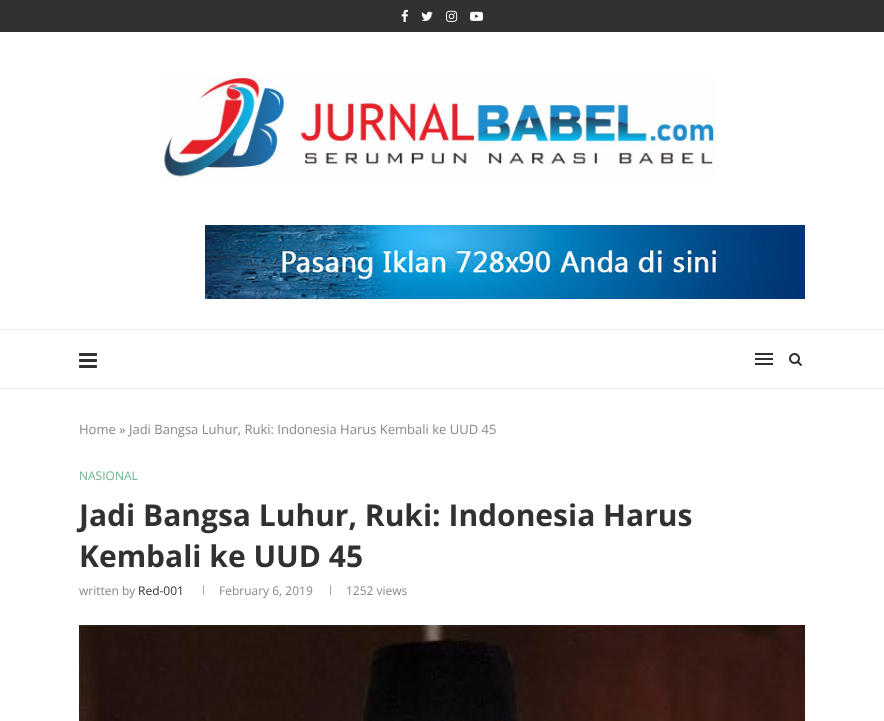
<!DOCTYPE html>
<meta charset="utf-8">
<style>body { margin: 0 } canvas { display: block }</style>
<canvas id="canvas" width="884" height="721"></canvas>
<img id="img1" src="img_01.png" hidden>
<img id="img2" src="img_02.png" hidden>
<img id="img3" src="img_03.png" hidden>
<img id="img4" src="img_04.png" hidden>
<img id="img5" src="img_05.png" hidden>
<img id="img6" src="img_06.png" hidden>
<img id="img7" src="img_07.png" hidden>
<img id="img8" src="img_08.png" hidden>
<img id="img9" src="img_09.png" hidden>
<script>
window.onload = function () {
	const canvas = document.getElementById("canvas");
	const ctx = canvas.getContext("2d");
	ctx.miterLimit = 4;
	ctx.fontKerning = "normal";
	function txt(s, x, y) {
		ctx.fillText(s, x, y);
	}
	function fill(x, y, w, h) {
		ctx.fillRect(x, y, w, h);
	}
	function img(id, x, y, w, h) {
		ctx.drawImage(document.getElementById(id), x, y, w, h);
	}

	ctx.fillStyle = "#FFFFFF";
	fill(0, 0, 884, 721);
	ctx.fillStyle = "#313131";
	fill(0, 0, 884, 32);
	img("img1", 401, 9, 7, 13);
	img("img2", 421, 11, 12, 10);
	img("img3", 446, 10, 12, 12);
	img("img4", 470, 11, 13, 10);
	img("img5", 159, 74, 558, 106);
	img("img6", 205, 225, 600, 74);
	ctx.fillStyle = "#ECECEC";
	fill(0, 329, 884, 1);
	fill(0, 388, 884, 1);
	img("img7", 79, 353, 18, 15);
	ctx.fillStyle = "#313131";
	fill(755, 353, 18, 2);
	fill(755, 363, 18, 2);
	fill(755, 358, 18, 2);
	img("img8", 789, 353, 13, 13);
	ctx.fillStyle = "#ACACAC";
	fill(203, 585, 1, 10);
	fill(330, 585, 1, 10);
	img("img9", 79, 625, 726, 96);
	ctx.font = "13px Open Sans";
	ctx.fillStyle = "#888888";
	txt("Home » Jadi Bangsa Luhur, Ruki: Indonesia Harus Kembali ke UUD 45", 79, 434);
	ctx.font = "12px Open Sans";
	ctx.fillStyle = "#6EB48C";
	txt("NASIONAL", 79, 480);
	ctx.font = "bold 30px Open Sans";
	ctx.fillStyle = "#313131";
	txt("Jadi Bangsa Luhur, Ruki: Indonesia Harus", 79, 526);
	txt("Kembali ke UUD 45", 79, 567);
	ctx.font = "12px Open Sans";
	ctx.fillStyle = "#888888";
	txt("written by", 79, 595);
	ctx.fillStyle = "#313131";
	txt("Red-001", 138, 595);
	ctx.fillStyle = "#888888";
	txt("February 6, 2019", 219, 595);
	txt("1252 views", 346, 595);
};
</script>
